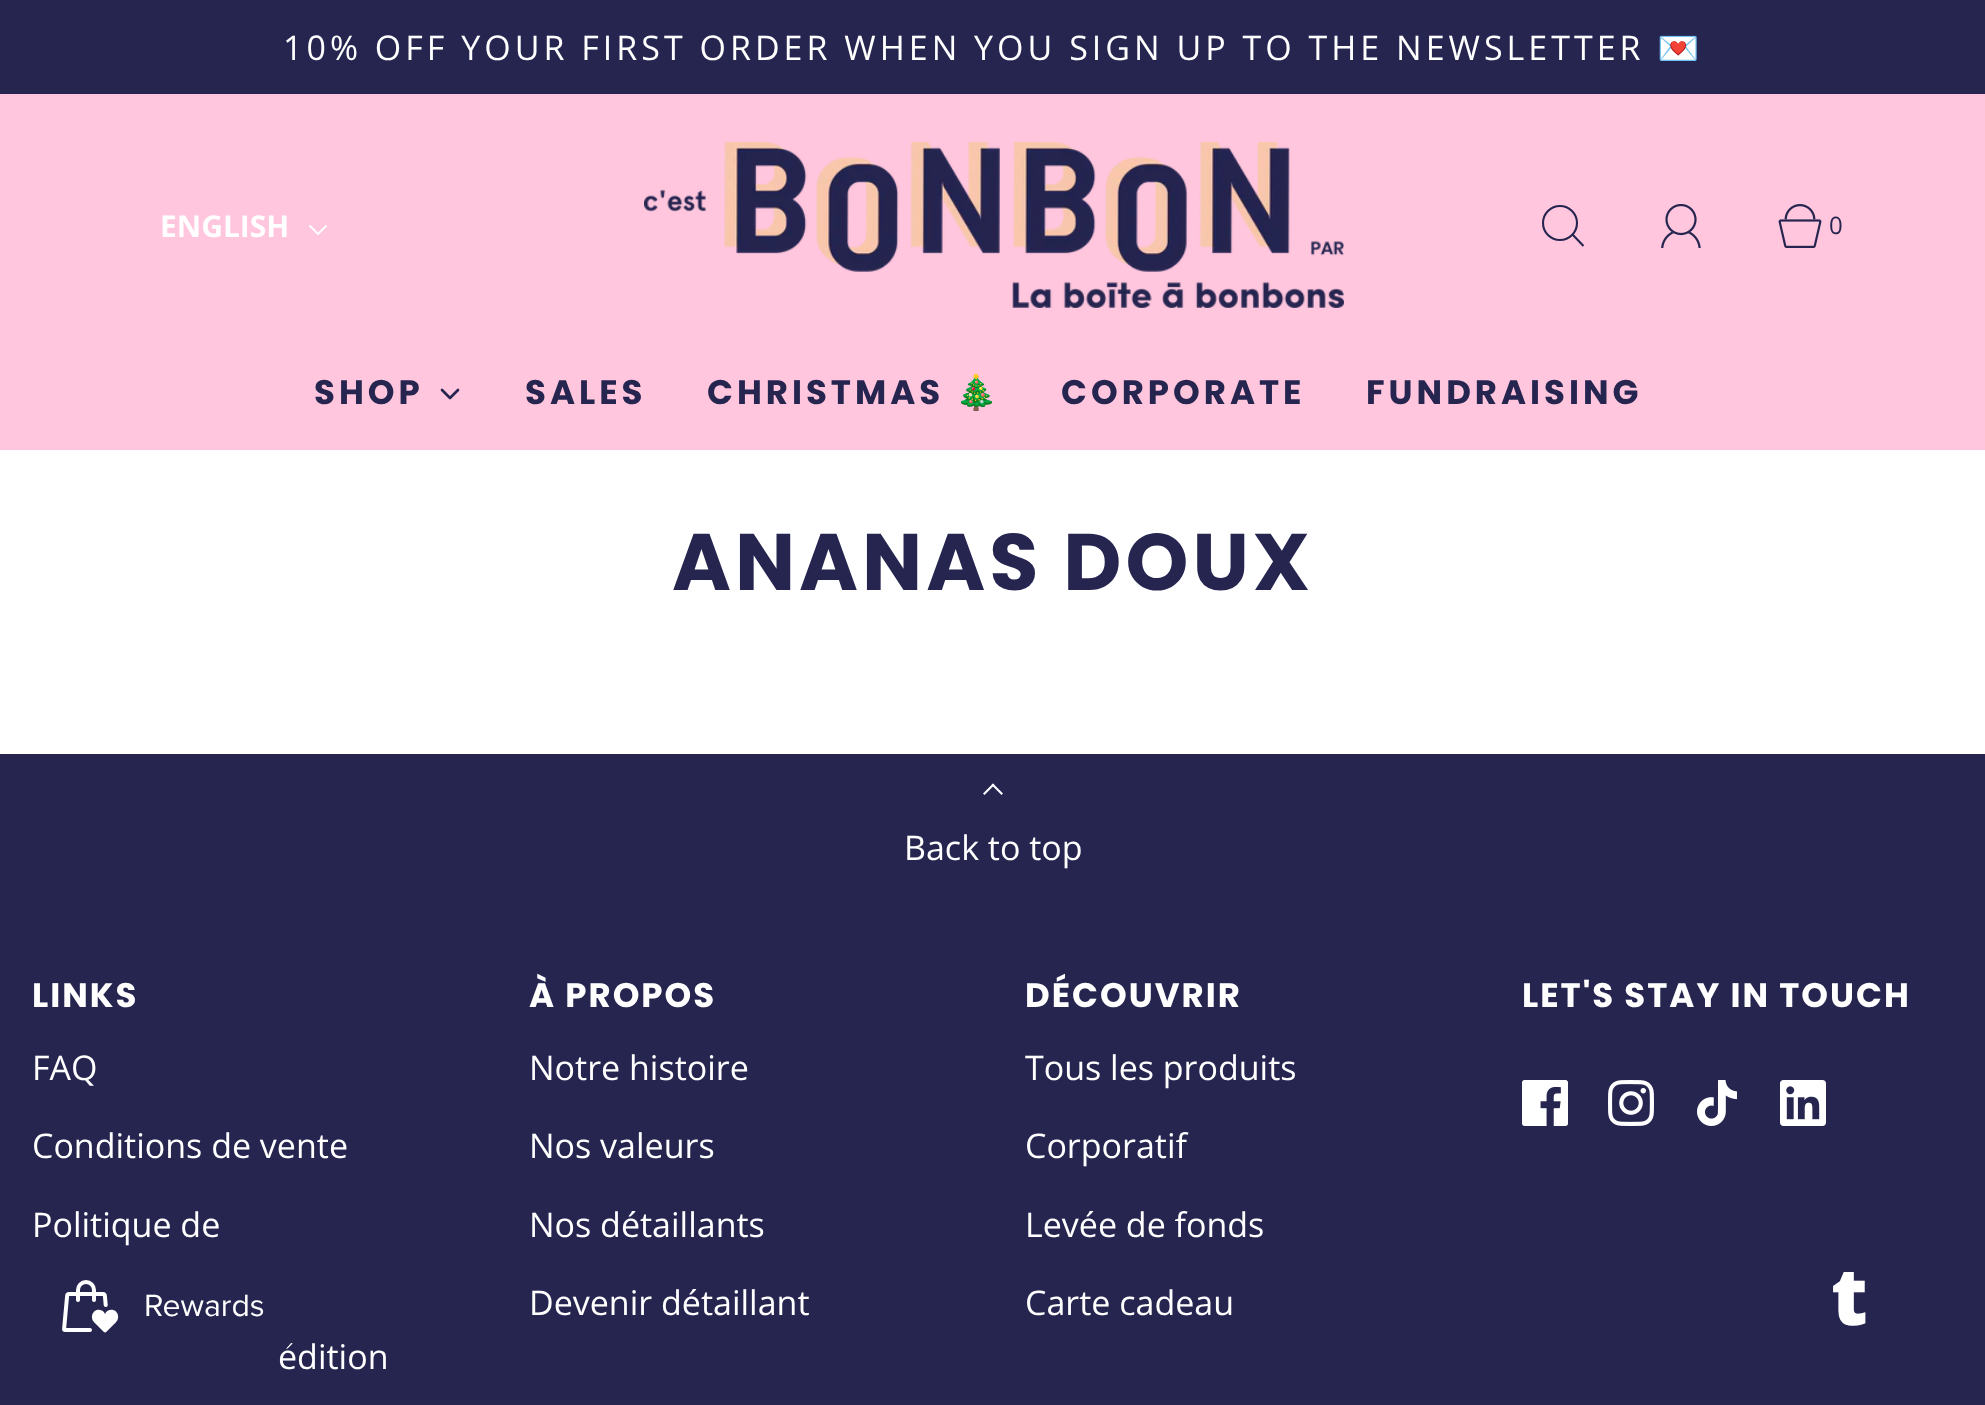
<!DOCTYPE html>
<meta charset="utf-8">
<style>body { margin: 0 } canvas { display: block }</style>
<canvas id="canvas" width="1985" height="1405"></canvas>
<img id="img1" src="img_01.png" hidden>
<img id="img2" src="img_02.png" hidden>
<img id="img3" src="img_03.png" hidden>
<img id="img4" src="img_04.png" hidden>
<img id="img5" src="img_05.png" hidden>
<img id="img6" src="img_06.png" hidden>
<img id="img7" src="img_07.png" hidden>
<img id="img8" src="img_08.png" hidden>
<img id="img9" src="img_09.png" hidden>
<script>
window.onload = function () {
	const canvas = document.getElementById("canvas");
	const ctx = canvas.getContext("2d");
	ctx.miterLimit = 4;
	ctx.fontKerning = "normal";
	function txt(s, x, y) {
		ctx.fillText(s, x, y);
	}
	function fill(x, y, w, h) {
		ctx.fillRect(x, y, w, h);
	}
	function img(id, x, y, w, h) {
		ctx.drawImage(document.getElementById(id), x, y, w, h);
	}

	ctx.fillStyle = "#FFFFFF";
	fill(0, 0, 1985, 1405);
	ctx.fillStyle = "#252550";
	fill(0, 0, 1985, 94);
	ctx.fillStyle = "#FFC6DE";
	fill(0, 94, 1985, 356);
	img("img1", 309, 225, 18, 10);
	img("img2", 644, 142, 700, 166);
	ctx.beginPath();
	ctx.arc(1560, 223, 17, 0, Math.PI * 2);
	ctx.strokeStyle = "#252550";
	ctx.lineWidth = 2.1;
	ctx.stroke();
	ctx.beginPath();
	ctx.moveTo(1572, 234);
	ctx.lineTo(1583.5, 246);
	ctx.stroke();
	img("img3", 1661, 204, 40, 44);
	img("img4", 1778, 204, 44, 44);
	ctx.beginPath();
	ctx.moveTo(442, 390);
	ctx.lineTo(450, 398);
	ctx.lineTo(458, 390);
	ctx.lineWidth = 2.7;
	ctx.lineCap = "round";
	ctx.lineJoin = "round";
	ctx.stroke();
	ctx.fillStyle = "#252550";
	fill(0, 754, 1985, 651);
	ctx.fillStyle = "#FFFFFF";
	ctx.beginPath();
	ctx.moveTo(984.5, 795);
	ctx.lineTo(983, 793.5);
	ctx.lineTo(993, 783.5);
	ctx.lineTo(994.5, 785);
	ctx.closePath();
	ctx.fill();
	ctx.beginPath();
	ctx.moveTo(1001.5, 795);
	ctx.lineTo(991.5, 785);
	ctx.lineTo(993, 783.5);
	ctx.lineTo(1003, 793.5);
	ctx.closePath();
	ctx.fill();
	img("img5", 1522, 1080, 46, 46);
	img("img6", 1608, 1080, 46, 46);
	img("img7", 1697, 1080, 40, 46);
	img("img8", 1780, 1080, 46, 46);
	ctx.letterSpacing = "4px";
	ctx.font = "34px Open Sans";
	txt("10% OFF YOUR FIRST ORDER WHEN YOU SIGN UP TO THE NEWSLETTER", 283, 60);
	ctx.font = "34px Noto Color Emoji";
	txt("💌", 1657, 60);
	ctx.letterSpacing = "0px";
	ctx.font = "bold 30px Open Sans";
	txt("ENGLISH", 160, 237);
	ctx.font = "24px Open Sans";
	ctx.fillStyle = "#252550";
	txt("0", 1829, 234);
	ctx.letterSpacing = "4px";
	ctx.font = "bold 34px Poppins";
	txt("SHOP", 314, 404);
	txt("SALES", 525, 404);
	txt("CHRISTMAS", 707, 404);
	ctx.font = "bold 34px Noto Color Emoji";
	txt("🎄", 955, 404);
	ctx.font = "bold 34px Poppins";
	txt("CORPORATE", 1061, 404);
	txt("FUNDRAISING", 1366, 404);
	ctx.font = "bold 80px Poppins";
	txt("ANANAS DOUX", 672, 590);
	ctx.letterSpacing = "0px";
	ctx.font = "34px Open Sans";
	ctx.fillStyle = "#FFFFFF";
	txt("Back to top", 904, 860);
	ctx.letterSpacing = "2px";
	ctx.font = "bold 34px Poppins";
	txt("LINKS", 32, 1007);
	ctx.letterSpacing = "0px";
	ctx.font = "34px Open Sans";
	txt("FAQ", 32, 1080);
	txt("Conditions de vente", 32, 1158);
	txt("Politique de", 32, 1237);
	txt("édition", 278, 1369);
	ctx.letterSpacing = "2px";
	ctx.font = "bold 34px Poppins";
	txt("À PROPOS", 529, 1007);
	ctx.letterSpacing = "0px";
	ctx.font = "34px Open Sans";
	txt("Notre histoire", 529, 1080);
	txt("Nos valeurs", 529, 1158);
	txt("Nos détaillants", 529, 1237);
	txt("Devenir détaillant", 529, 1315);
	ctx.letterSpacing = "2px";
	ctx.font = "bold 34px Poppins";
	txt("DÉCOUVRIR", 1025, 1007);
	ctx.letterSpacing = "0px";
	ctx.font = "34px Open Sans";
	txt("Tous les produits", 1025, 1080);
	txt("Corporatif", 1025, 1158);
	txt("Levée de fonds", 1025, 1237);
	txt("Carte cadeau", 1025, 1315);
	ctx.letterSpacing = "2px";
	ctx.font = "bold 34px Poppins";
	txt("LET'S STAY IN TOUCH", 1522, 1007);
	img("img9", 34, 1265, 258, 101);
	ctx.letterSpacing = "0px";
	ctx.font = "900 80px Noto Sans";
	txt("t", 1831, 1325);
};
</script>
